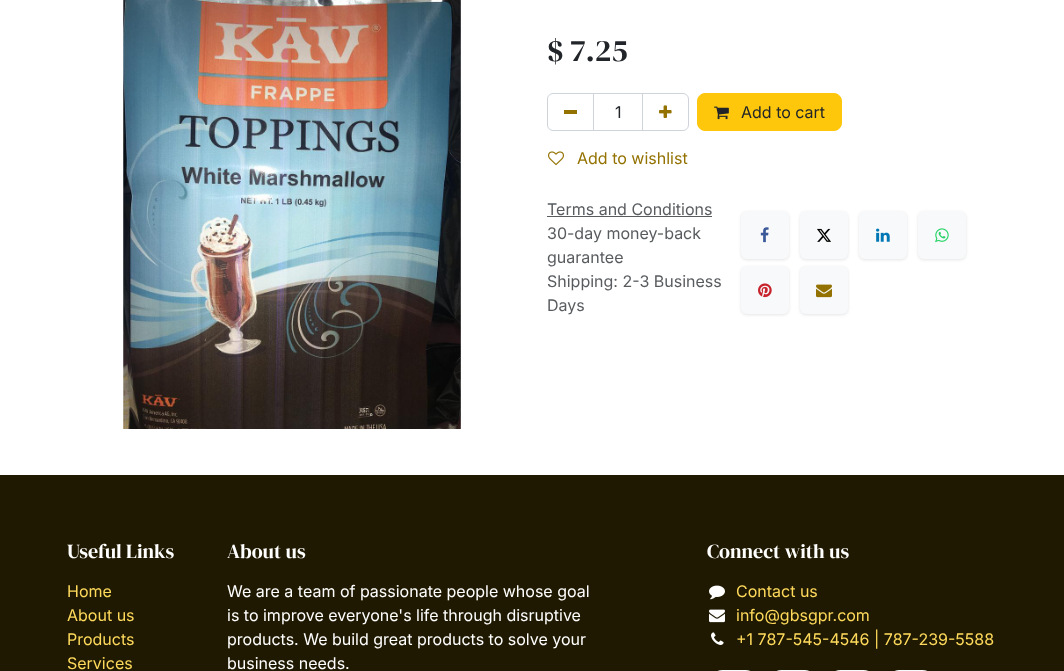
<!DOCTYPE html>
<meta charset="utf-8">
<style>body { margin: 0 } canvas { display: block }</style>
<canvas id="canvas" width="1064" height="671"></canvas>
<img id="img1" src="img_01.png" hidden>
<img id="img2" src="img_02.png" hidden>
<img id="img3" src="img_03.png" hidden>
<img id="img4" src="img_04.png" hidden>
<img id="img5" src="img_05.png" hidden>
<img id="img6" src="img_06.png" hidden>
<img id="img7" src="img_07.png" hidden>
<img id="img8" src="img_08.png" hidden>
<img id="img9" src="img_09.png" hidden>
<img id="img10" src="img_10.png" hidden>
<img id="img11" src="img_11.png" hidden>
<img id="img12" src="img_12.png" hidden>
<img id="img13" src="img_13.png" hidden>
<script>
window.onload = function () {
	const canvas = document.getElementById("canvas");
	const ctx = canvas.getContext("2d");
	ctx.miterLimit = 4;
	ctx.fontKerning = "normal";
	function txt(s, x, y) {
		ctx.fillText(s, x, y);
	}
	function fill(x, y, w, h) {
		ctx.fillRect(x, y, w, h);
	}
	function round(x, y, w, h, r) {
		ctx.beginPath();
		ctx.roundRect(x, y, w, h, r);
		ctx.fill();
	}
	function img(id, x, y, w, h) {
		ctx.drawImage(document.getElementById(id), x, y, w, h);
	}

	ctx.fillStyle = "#FFFFFF";
	fill(0, 0, 1064, 671);
	img("img1", 123, 0, 338, 429);
	ctx.strokeStyle = "#CED4DA";
	ctx.strokeRect(593.5, 93.5, 49, 37);
	ctx.beginPath();
	ctx.roundRect(547.5, 93.5, 46, 37, [5.5, 0, 0, 5.5]);
	ctx.stroke();
	ctx.fillStyle = "#937201";
	fill(564, 110, 13, 4);
	ctx.beginPath();
	ctx.roundRect(642.5, 93.5, 46, 37, [0, 5.5, 5.5, 0]);
	ctx.stroke();
	img("img2", 659, 105, 13, 13);
	ctx.fillStyle = "#FEC70B";
	ctx.beginPath();
	ctx.roundRect(697.5, 93.5, 144, 37, 7.5);
	ctx.fill();
	ctx.strokeStyle = "#FEC70B";
	ctx.stroke();
	img("img3", 714, 106, 15, 14);
	img("img4", 548, 151, 16, 15);
	ctx.fillStyle = "#595C5F";
	fill(547, 216, 165, 1);
	ctx.fillStyle = "rgba(0, 0, 0, 0.1)";
	ctx.filter = "blur(1.5px)";
	ctx.beginPath();
	ctx.roundRect(741, 212, 48, 48, 6);
	ctx.fill();
	ctx.filter = "none";
	ctx.fillStyle = "#F8F9FA";
	round(741, 211, 48, 48, 6);
	img("img5", 760, 227, 9, 16);
	ctx.fillStyle = "rgba(0, 0, 0, 0.1)";
	ctx.filter = "blur(1.5px)";
	ctx.beginPath();
	ctx.roundRect(800, 212, 48, 48, 6);
	ctx.fill();
	ctx.filter = "none";
	ctx.fillStyle = "#F8F9FA";
	round(800, 211, 48, 48, 6);
	img("img6", 817, 228, 14, 14);
	ctx.fillStyle = "rgba(0, 0, 0, 0.1)";
	ctx.filter = "blur(1.5px)";
	ctx.beginPath();
	ctx.roundRect(859, 212, 48, 48, 6);
	ctx.fill();
	ctx.filter = "none";
	ctx.fillStyle = "#F8F9FA";
	round(859, 211, 48, 48, 6);
	img("img7", 876, 228, 14, 14);
	ctx.fillStyle = "rgba(0, 0, 0, 0.1)";
	ctx.filter = "blur(1.5px)";
	ctx.beginPath();
	ctx.roundRect(918, 212, 48, 48, 6);
	ctx.fill();
	ctx.filter = "none";
	ctx.fillStyle = "#F8F9FA";
	round(918, 211, 48, 48, 6);
	img("img8", 935, 228, 14, 15);
	ctx.fillStyle = "rgba(0, 0, 0, 0.1)";
	ctx.filter = "blur(1.5px)";
	ctx.beginPath();
	ctx.roundRect(741, 267, 48, 48, 6);
	ctx.fill();
	ctx.filter = "none";
	ctx.fillStyle = "#F8F9FA";
	round(741, 266, 48, 48, 6);
	img("img9", 758, 283, 14, 15);
	ctx.fillStyle = "rgba(0, 0, 0, 0.1)";
	ctx.filter = "blur(1.5px)";
	ctx.beginPath();
	ctx.roundRect(800, 267, 48, 48, 6);
	ctx.fill();
	ctx.filter = "none";
	ctx.fillStyle = "#F8F9FA";
	round(800, 266, 48, 48, 6);
	img("img10", 816, 284, 16, 14);
	ctx.fillStyle = "#201901";
	fill(0, 475, 1064, 196);
	img("img11", 709, 585, 16, 15);
	img("img12", 709, 609, 16, 14);
	img("img13", 711, 632, 13, 13);
	ctx.fillStyle = "#F8F9FA";
	round(710, 670, 48, 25, 24);
	round(769, 670, 48, 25, 24);
	round(828, 670, 48, 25, 24);
	round(887, 670, 48, 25, 24);
	ctx.font = "31px DM Serif Display";
	ctx.fillStyle = "#212529";
	txt("$ 7.25", 547, 61);
	ctx.font = "16px Inter";
	txt("1", 615, 118);
	txt("Add to cart", 741, 118);
	ctx.fillStyle = "#937201";
	txt("Add to wishlist", 577, 164);
	ctx.fillStyle = "#595C5F";
	txt("Terms and Conditions", 547, 215);
	txt("30-day money-back", 547, 239);
	txt("guarantee", 547, 263);
	txt("Shipping: 2-3 Business", 547, 287);
	txt("Days", 547, 311);
	ctx.font = "20px DM Serif Display";
	ctx.fillStyle = "#FFFFFF";
	txt("Useful Links", 67, 558);
	ctx.font = "16px Inter";
	ctx.fillStyle = "#FEDA5C";
	txt("Home", 67, 597);
	txt("About us", 67, 621);
	txt("Products", 67, 645);
	txt("Services", 67, 669);
	ctx.font = "20px DM Serif Display";
	ctx.fillStyle = "#FFFFFF";
	txt("About us", 227, 558);
	ctx.font = "16px Inter";
	txt("We are a team of passionate people whose goal", 227, 597);
	txt("is to improve everyone's life through disruptive", 227, 621);
	txt("products. We build great products to solve your", 227, 645);
	txt("business needs.", 227, 669);
	ctx.font = "20px DM Serif Display";
	txt("Connect with us", 707, 558);
	ctx.font = "16px Inter";
	ctx.fillStyle = "#FEDA5C";
	txt("Contact us", 736, 597);
	txt("info@gbsgpr.com", 736, 621);
	txt("+1 787-545-4546 | 787-239-5588", 736, 645);
};
</script>
